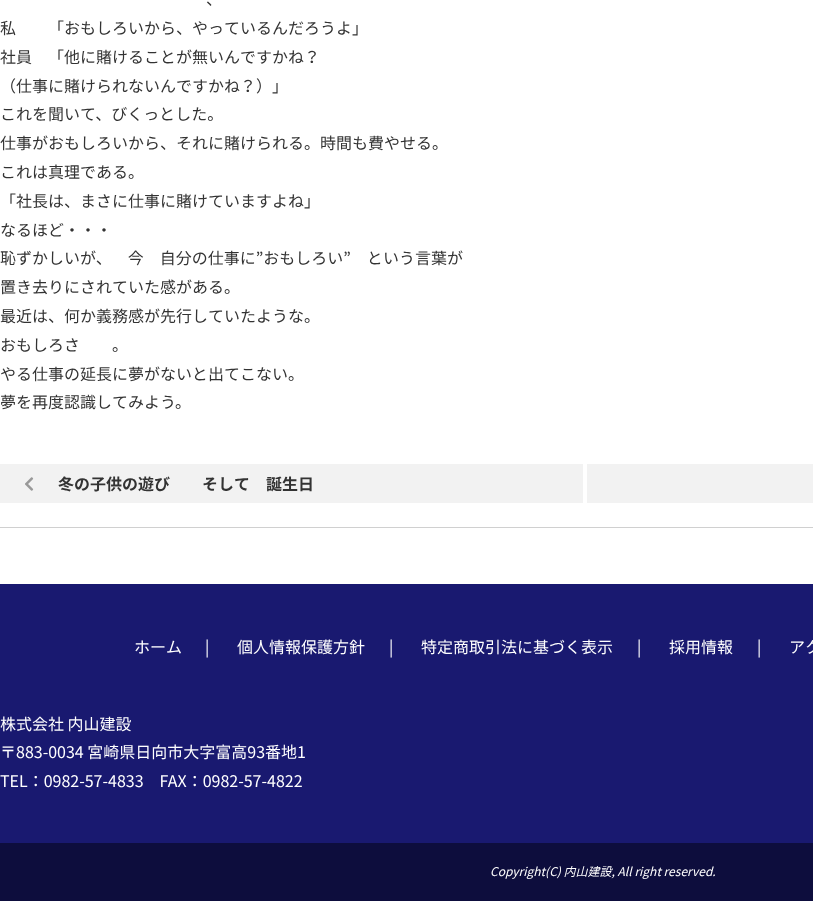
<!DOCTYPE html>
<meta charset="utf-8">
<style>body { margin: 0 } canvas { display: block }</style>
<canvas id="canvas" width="813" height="901"></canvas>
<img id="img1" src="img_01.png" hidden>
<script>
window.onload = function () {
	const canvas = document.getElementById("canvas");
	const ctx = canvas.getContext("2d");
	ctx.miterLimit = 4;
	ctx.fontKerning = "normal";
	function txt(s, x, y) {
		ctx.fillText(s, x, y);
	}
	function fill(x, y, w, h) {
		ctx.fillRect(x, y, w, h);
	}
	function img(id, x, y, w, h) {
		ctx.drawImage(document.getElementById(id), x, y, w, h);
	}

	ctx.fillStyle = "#FFFFFF";
	fill(0, 0, 813, 901);
	ctx.fillStyle = "#D0D0D0";
	fill(0, 527, 813, 1);
	ctx.fillStyle = "#F2F2F2";
	fill(0, 464, 583, 39);
	img("img1", 25, 477, 9, 14);
	fill(587, 464, 226, 39);
	ctx.fillStyle = "#191970";
	fill(0, 584, 813, 259);
	ctx.fillStyle = "#0D0D3D";
	fill(0, 843, 813, 58);
	ctx.font = "16px Noto Sans JP";
	ctx.fillStyle = "#333333";
	txt("、", 206, 5);
	txt("私　　「おもしろいから、やっているんだろうよ」", 0, 34);
	txt("社員　「他に賭けることが無いんですかね？", 0, 63);
	txt("（仕事に賭けられないんですかね？）」", 0, 92);
	txt("これを聞いて、びくっとした。", 0, 120);
	txt("仕事がおもしろいから、それに賭けられる。時間も費やせる。", 0, 149);
	txt("これは真理である。", 0, 178);
	txt("「社長は、まさに仕事に賭けていますよね」", 0, 207);
	txt("なるほど・・・", 0, 236);
	txt("恥ずかしいが、　今　自分の仕事に”おもしろい”　という言葉が", 0, 264);
	txt("置き去りにされていた感がある。", 0, 293);
	txt("最近は、何か義務感が先行していたような。", 0, 322);
	txt("おもしろさ　　。", 0, 351);
	txt("やる仕事の延長に夢がないと出てこない。", 0, 380);
	txt("夢を再度認識してみよう。", 0, 408);
	ctx.font = "bold 16px Noto Sans JP";
	txt("冬の子供の遊び　　そして　誕生日", 58, 490);
	ctx.font = "16px Noto Sans JP";
	ctx.fillStyle = "#FFFFFF";
	txt("ホーム", 134, 653);
	txt("|", 205, 653);
	txt("個人情報保護方針", 237, 653);
	txt("|", 389, 653);
	txt("特定商取引法に基づく表示", 421, 653);
	txt("|", 637, 653);
	txt("採用情報", 669, 653);
	txt("|", 757, 653);
	txt("アク", 789, 653);
	txt("株式会社 内山建設", 0, 730);
	txt("〒883-0034 宮崎県日向市大字富高93番地1", 0, 758);
	txt("TEL：0982-57-4833　FAX：0982-57-4822", 0, 787);
	ctx.font = "italic 12px Noto Sans JP";
	txt("Copyright(C) 内山建設, All right reserved.", 490, 876);
};
</script>
